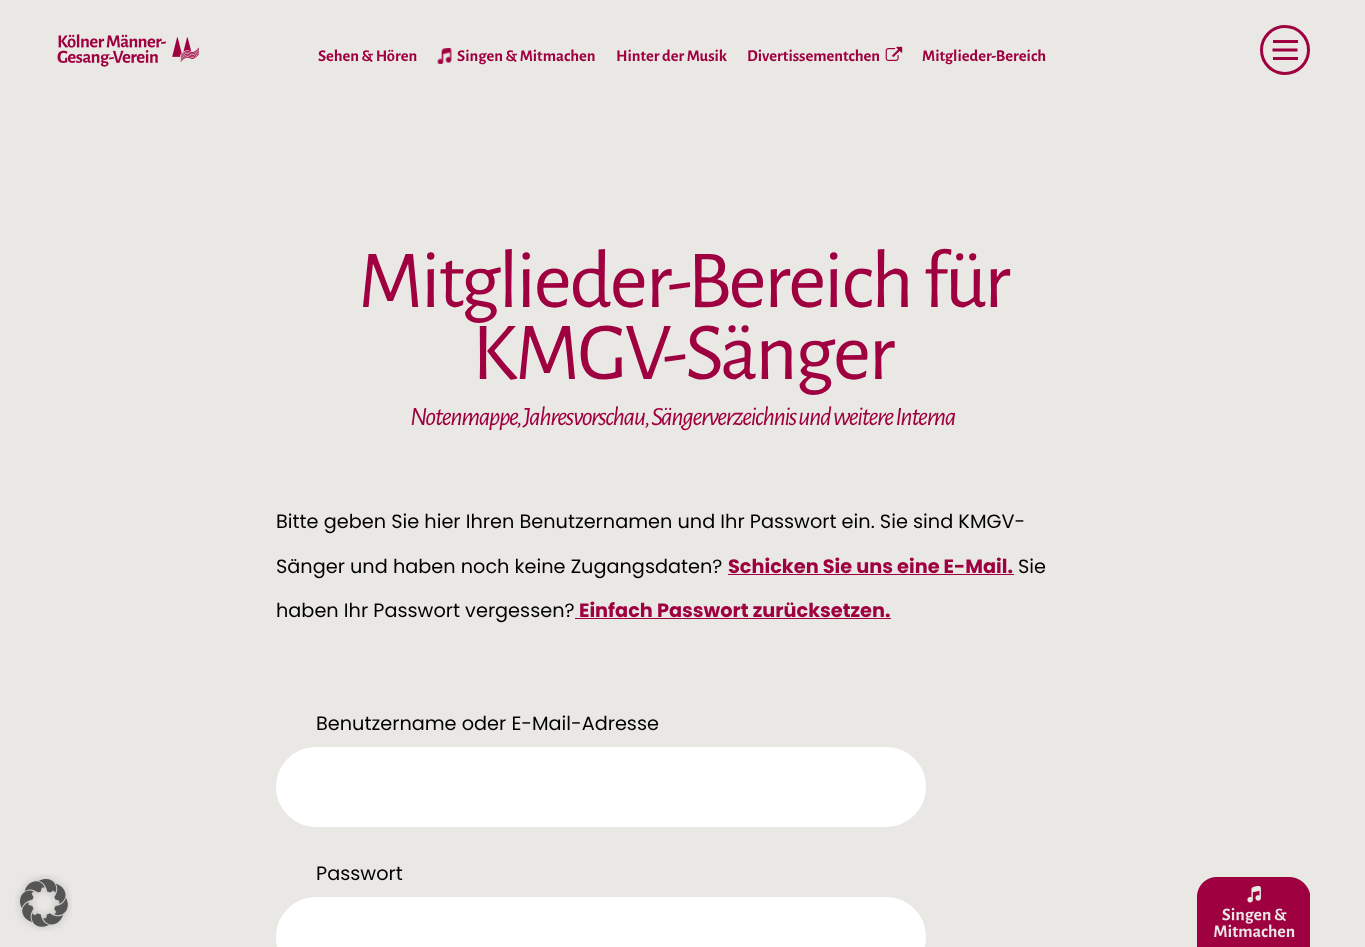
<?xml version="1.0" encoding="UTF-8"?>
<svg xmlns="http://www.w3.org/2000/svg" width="1365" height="947">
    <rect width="100%" height="100%" fill="#EAE8E4"/>
    <image x="57" y="34" width="142" height="33" href="img_01.png"/>
    <circle cx="1285" cy="50" r="23.5" fill="none" stroke="#9F003F" stroke-width="3"/>
    <rect x="1273" y="40" width="25" height="3" fill="#9F003F"/>
    <path d="M 1272.5 50 H 1297.5" fill="none" stroke="#9F003F" stroke-width="3"/>
    <rect x="1273" y="57" width="25" height="3" fill="#9F003F"/>
    <text x="318" y="61" font-family="Alegreya Sans" font-size="16.5" font-weight="700" fill="#9F003F">Sehen &amp; Hören</text>
    <image x="437" y="48" width="15" height="16" href="img_02.png"/>
    <text x="457" y="61" font-family="Alegreya Sans" font-size="16.5" font-weight="700" fill="#9F003F">Singen &amp; Mitmachen</text>
    <text x="616" y="61" font-family="Alegreya Sans" font-size="16.5" font-weight="700" fill="#9F003F">Hinter der Musik</text>
    <text x="747" y="61" font-family="Alegreya Sans" font-size="16.5" font-weight="700" fill="#9F003F">Divertissementchen</text>
    <image x="885" y="46" width="18" height="15" href="img_03.png"/>
    <text x="922" y="61" font-family="Alegreya Sans" font-size="16.5" font-weight="700" fill="#9F003F">Mitglieder-Bereich</text>
    <text x="358" y="307" font-family="Alegreya Sans" font-size="82.75" letter-spacing="-2.5" fill="#9F003F">Mitglieder-Bereich für</text>
    <text x="472" y="379" font-family="Alegreya Sans" font-size="82.75" letter-spacing="-2.5" fill="#9F003F">KMGV-Sänger</text>
    <text x="410" y="425" font-family="Alegreya Sans" font-size="26.5" font-style="italic" letter-spacing="-1.48" fill="#9F003F">Notenmappe, Jahresvorschau, Sängerverzeichnis und weitere Interna</text>
    <text x="276" y="528" font-family="Poppins" font-size="19.3" fill="#000000">Bitte geben Sie hier Ihren Benutzernamen und Ihr Passwort ein. Sie sind KMGV-</text>
    <text x="276" y="573" font-family="Poppins" font-size="19.3" fill="#000000">Sänger und haben noch keine Zugangsdaten?</text>
    <text x="728" y="573" font-family="Poppins" font-size="19.3" font-weight="700" fill="#9F003F">Schicken Sie uns eine E-Mail.</text>
    <rect x="728" y="574" width="286" height="1" fill="#9F003F"/>
    <text x="1018" y="573" font-family="Poppins" font-size="19.3" fill="#000000">Sie</text>
    <text x="276" y="617" font-family="Poppins" font-size="19.3" fill="#000000">haben Ihr Passwort vergessen?</text>
    <text x="579" y="617" font-family="Poppins" font-size="19.3" font-weight="700" fill="#9F003F">Einfach Passwort zurücksetzen.</text>
    <rect x="575" y="618" width="316" height="1" fill="#9F003F"/>
    <text x="316" y="730" font-family="Poppins" font-size="19.3" fill="#000000">Benutzername oder E-Mail-Adresse</text>
    <rect x="277.5" y="748.5" width="647" height="77" rx="38.5" fill="#FFFFFF" stroke="#FFFFFF" stroke-width="3"/>
    <text x="316" y="880" font-family="Poppins" font-size="19.3" fill="#000000">Passwort</text>
    <rect x="277.5" y="898.5" width="647" height="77" rx="38.5" fill="#FFFFFF" stroke="#FFFFFF" stroke-width="3"/>
    <image x="1197" y="877" width="113" height="70" href="img_04.png"/>
    <image x="15" y="874" width="57" height="57" href="img_05.png"/>
</svg>
